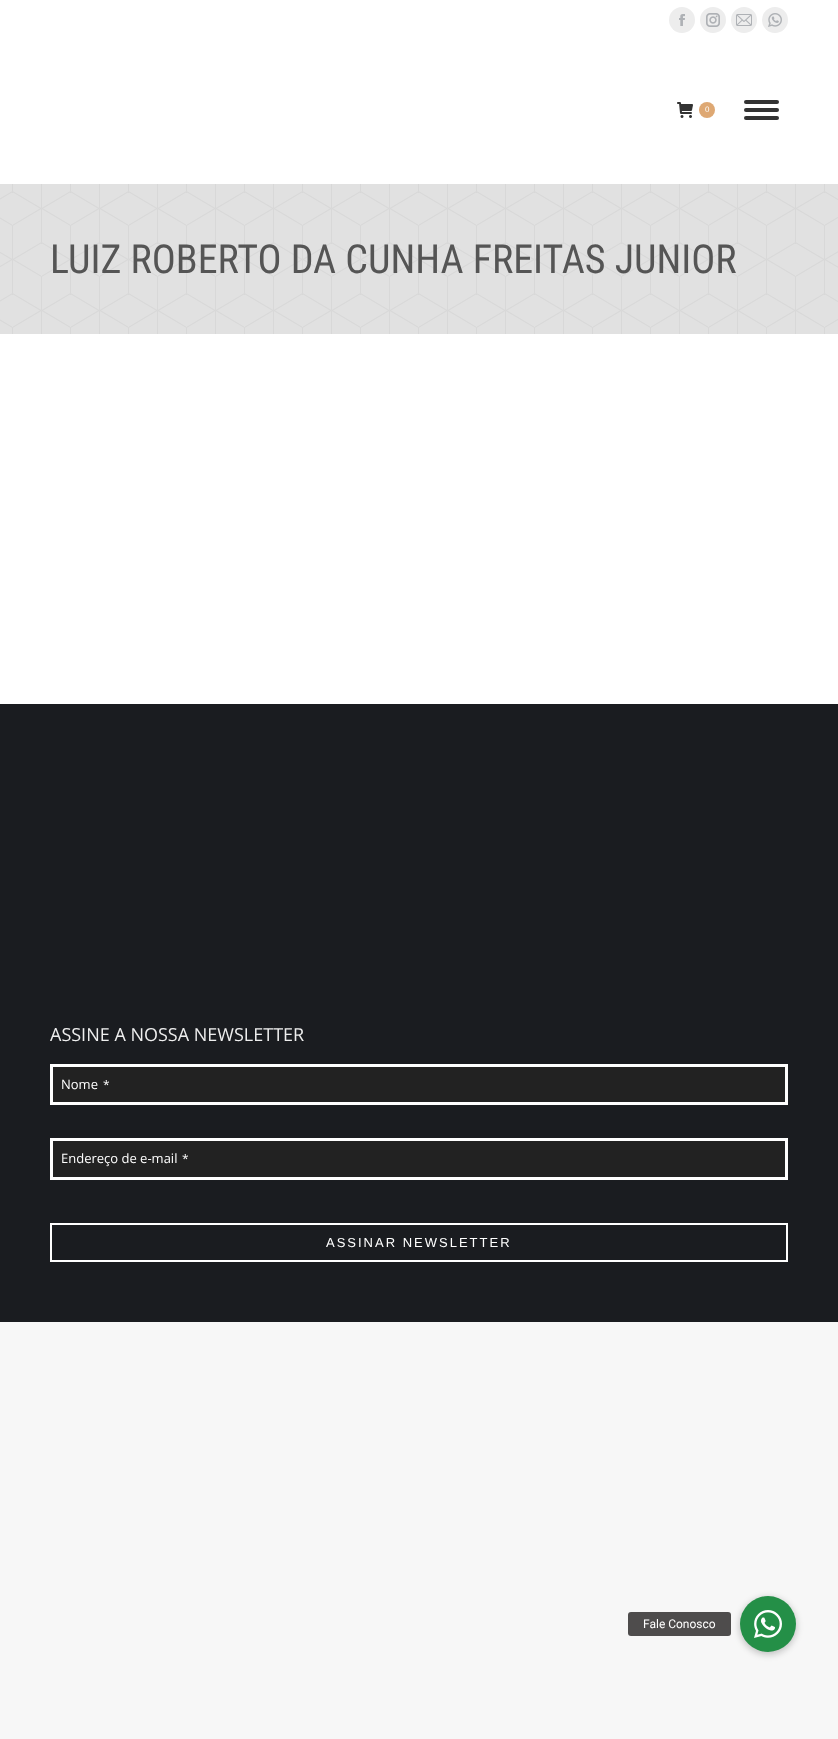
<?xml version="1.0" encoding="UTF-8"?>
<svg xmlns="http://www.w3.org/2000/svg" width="838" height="1739">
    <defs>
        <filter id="blur1" x="-50%" y="-200%" width="200%" height="500%"><feGaussianBlur stdDeviation="3"/></filter>
    </defs>
    <rect width="100%" height="100%" fill="#F7F7F7"/>
    <rect x="0" y="0" width="838" height="704" fill="#FFFFFF"/>
    <circle cx="682" cy="20" r="13" fill="#EDEDED"/>
    <image x="679" y="14" width="6" height="12" href="img_01.png"/>
    <circle cx="713" cy="20" r="13" fill="#EDEDED"/>
    <image x="706" y="13" width="14" height="14" href="img_02.png"/>
    <circle cx="744" cy="20" r="13" fill="#EDEDED"/>
    <image x="736" y="14" width="16" height="12" href="img_03.png"/>
    <circle cx="775" cy="20" r="13" fill="#EDEDED"/>
    <image x="768" y="13" width="14" height="14" href="img_04.png"/>
    <image x="677" y="102" width="16" height="16" href="img_05.png"/>
    <circle cx="707" cy="110" r="8" fill="#DEA873"/>
    <text x="705" y="112" font-family="Liberation Sans" font-size="8" fill="#FFFFFF">0</text>
    <rect x="744" y="100" width="35" height="4" rx="2" fill="#333333"/>
    <rect x="744" y="108" width="35" height="4" rx="2" fill="#333333"/>
    <rect x="744" y="116" width="35" height="4" rx="2" fill="#333333"/>
    <rect x="0" y="184" width="838" height="150" fill="#E1E1E1"/>
    <image x="0" y="184" width="838" height="150" href="img_06.png"/>
    <text x="50" y="273" font-family="Roboto Condensed" font-size="40" fill="#555555">LUIZ ROBERTO DA CUNHA FREITAS JUNIOR</text>
    <rect x="0" y="704" width="838" height="618" fill="#1A1C20"/>
    <text x="50" y="1041" font-family="Open Sans" font-size="18" fill="#EEEEEE">ASSINE A NOSSA NEWSLETTER</text>
    <rect x="51.5" y="1065.5" width="735" height="38" fill="#222222" stroke="#FFFFFF" stroke-width="3"/>
    <text x="61" y="1089" font-family="Open Sans" font-size="13" fill="#FFFFFF">Nome</text>
    <text x="103" y="1089" font-family="Open Sans" font-size="12" fill="#FFFFFF">*</text>
    <rect x="51.5" y="1139.5" width="735" height="39" fill="#222222" stroke="#FFFFFF" stroke-width="3"/>
    <text x="61" y="1163" font-family="Open Sans" font-size="13" fill="#FFFFFF">Endereço de e-mail</text>
    <text x="182" y="1163" font-family="Open Sans" font-size="12" fill="#FFFFFF">*</text>
    <rect x="51" y="1224" width="736" height="37" fill="none" stroke="#FFFFFF" stroke-width="2"/>
    <text x="326" y="1247" font-family="Liberation Sans" font-size="13" letter-spacing="2" fill="#FFFFFF">ASSINAR NEWSLETTER</text>
    <rect x="739" y="1597" width="58" height="58" rx="29" fill="#000000" fill-opacity="0.2" filter="url(#blur1)"/>
    <circle cx="768" cy="1624" r="28" fill="#248F47"/>
    <rect x="628" y="1612" width="103" height="24" rx="3" fill="#4E4C4C"/>
    <text x="643" y="1628" font-family="Roboto" font-size="12" fill="#FFFFFF">Fale Conosco</text>
    <image x="754" y="1610" width="28" height="28" href="img_07.png"/>
</svg>
